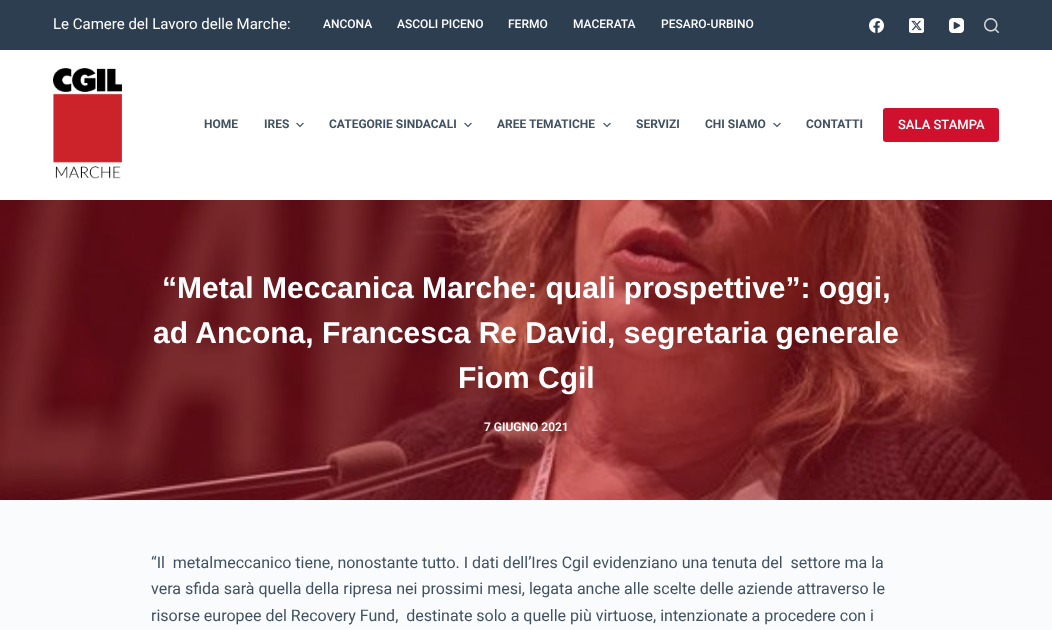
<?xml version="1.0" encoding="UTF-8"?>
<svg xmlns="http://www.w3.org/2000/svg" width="1052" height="630">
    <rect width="100%" height="100%" fill="#FAFBFC"/>
    <rect x="0" y="0" width="1052" height="50" fill="#2C3E50"/>
    <text x="53" y="29" font-family="Roboto" font-size="15" fill="#FFFFFF">Le Camere del Lavoro delle Marche:</text>
    <text x="323" y="28" font-family="Roboto" font-size="12" font-weight="500" fill="#FFFFFF">ANCONA</text>
    <text x="397" y="28" font-family="Roboto" font-size="12" font-weight="500" fill="#FFFFFF">ASCOLI PICENO</text>
    <text x="508" y="28" font-family="Roboto" font-size="12" font-weight="500" fill="#FFFFFF">FERMO</text>
    <text x="573" y="28" font-family="Roboto" font-size="12" font-weight="500" fill="#FFFFFF">MACERATA</text>
    <text x="661" y="28" font-family="Roboto" font-size="12" font-weight="500" fill="#FFFFFF">PESARO-URBINO</text>
    <image x="869" y="18" width="15" height="15" href="img_01.png"/>
    <image x="909" y="18" width="15" height="15" href="img_02.png"/>
    <image x="949" y="18" width="15" height="15" href="img_03.png"/>
    <image x="984" y="18" width="15" height="15" href="img_04.png"/>
    <rect x="0" y="50" width="1052" height="150" fill="#FFFFFF"/>
    <image x="53" y="68" width="69" height="111" href="img_05.png"/>
    <text x="204" y="128" font-family="Roboto" font-size="12" font-weight="700" fill="#415161">HOME</text>
    <text x="264" y="128" font-family="Roboto" font-size="12" font-weight="700" fill="#415161">IRES</text>
    <image x="296" y="122" width="8" height="6" href="img_06.png"/>
    <text x="329" y="128" font-family="Roboto" font-size="12" font-weight="700" fill="#415161">CATEGORIE SINDACALI</text>
    <image x="464" y="122" width="8" height="6" href="img_06.png"/>
    <text x="497" y="128" font-family="Roboto" font-size="12" font-weight="700" fill="#415161">AREE TEMATICHE</text>
    <image x="603" y="122" width="8" height="6" href="img_06.png"/>
    <text x="636" y="128" font-family="Roboto" font-size="12" font-weight="700" fill="#415161">SERVIZI</text>
    <text x="705" y="128" font-family="Roboto" font-size="12" font-weight="700" fill="#415161">CHI SIAMO</text>
    <image x="773" y="122" width="8" height="6" href="img_06.png"/>
    <text x="806" y="128" font-family="Roboto" font-size="12" font-weight="700" fill="#415161">CONTATTI</text>
    <rect x="883" y="108" width="116" height="34" rx="3" fill="#CF112D"/>
    <text x="898" y="129" font-family="Roboto" font-size="13" font-weight="500" fill="#FFFFFF">SALA STAMPA</text>
    <image x="0" y="200" width="1052" height="300" href="img_07.png"/>
    <text x="162" y="298" font-family="Liberation Sans" font-size="30" font-weight="700" fill="#FFFFFF">“Metal Meccanica Marche: quali prospettive”: oggi,</text>
    <text x="153" y="343" font-family="Liberation Sans" font-size="30" font-weight="700" fill="#FFFFFF">ad Ancona, Francesca Re David, segretaria generale</text>
    <text x="458" y="388" font-family="Liberation Sans" font-size="30" font-weight="700" fill="#FFFFFF">Fiom Cgil</text>
    <text x="484" y="431" font-family="Roboto" font-size="12" font-weight="600" fill="#FFFFFF">7 GIUGNO 2021</text>
    <text font-family="Roboto" font-size="16" fill="#415161" xml:space="preserve"><tspan x="151" y="568">“Il  metalmeccanico tiene, nonostante tutto. I dati dell’Ires Cgil evidenziano una tenuta del  settore ma la</tspan><tspan x="151" y="594">vera sfida sarà quella della ripresa nei prossimi mesi, legata anche alle scelte delle aziende attraverso le</tspan><tspan x="151" y="621">risorse europee del Recovery Fund,  destinate solo a quelle più virtuose, intenzionate a procedere con i</tspan></text>
</svg>
